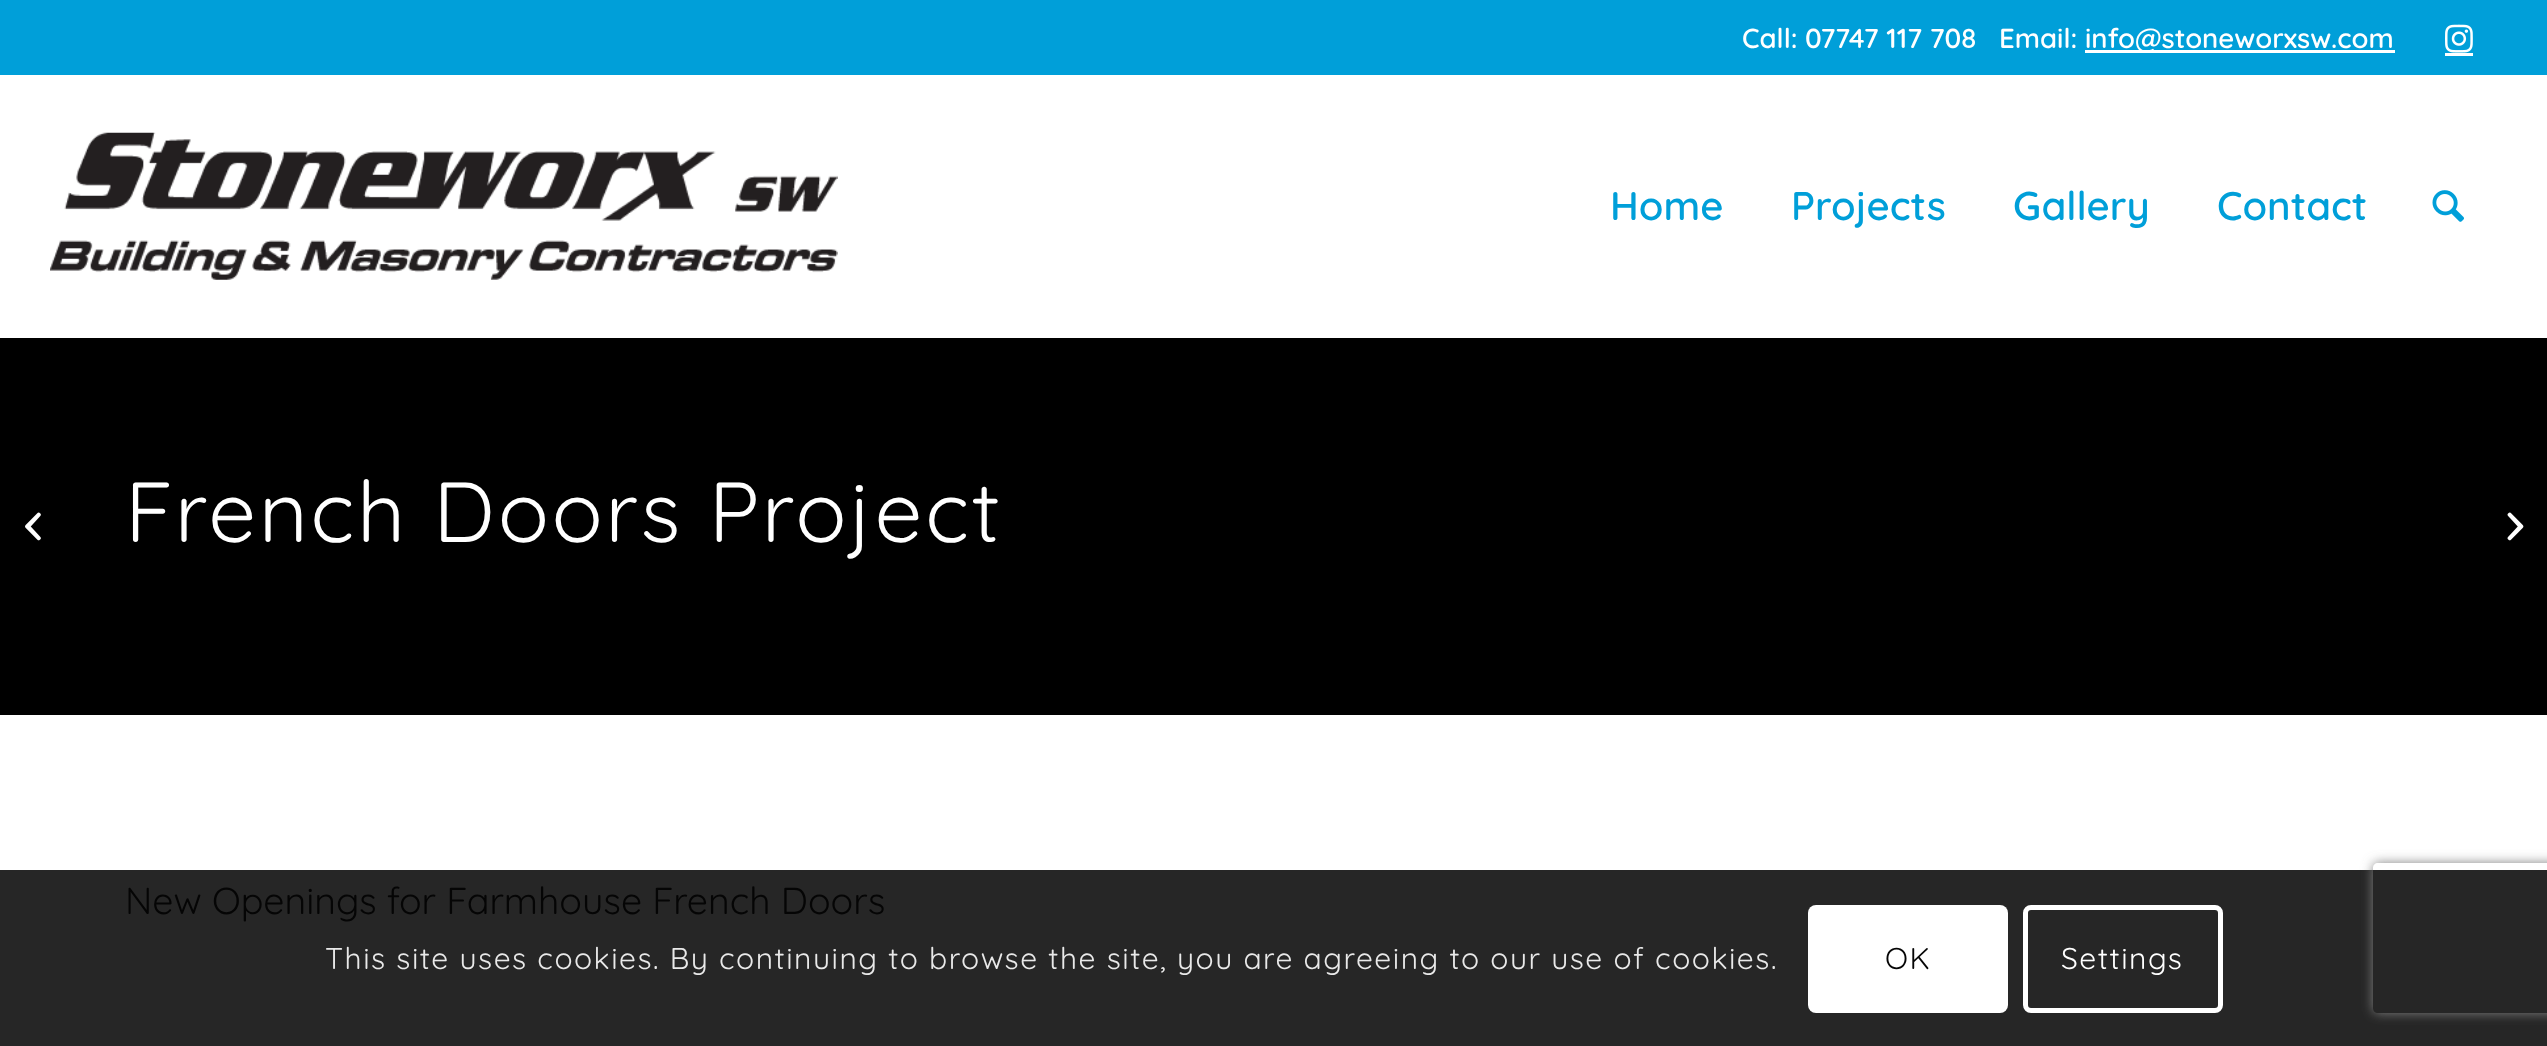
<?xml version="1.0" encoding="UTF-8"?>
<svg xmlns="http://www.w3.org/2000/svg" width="2547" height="1046">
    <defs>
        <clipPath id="clip1"><path d="M 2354 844 H 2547 V 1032 H 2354 Z M 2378 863 H 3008 C 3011 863 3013 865 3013 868 V 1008 C 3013 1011 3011 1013 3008 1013 H 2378 C 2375 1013 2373 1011 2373 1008 V 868 C 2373 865 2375 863 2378 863 Z" clip-rule="evenodd"/></clipPath>
        <filter id="blur1" x="-50%" y="-200%" width="200%" height="500%"><feGaussianBlur stdDeviation="6"/></filter>
    </defs>
    <rect width="100%" height="100%" fill="#FFFFFF"/>
    <rect x="0" y="870" width="2547" height="176" fill="#262626"/>
    <rect x="0" y="0" width="2547" height="75" fill="#009FD9"/>
    <text x="1742" y="48" font-family="Quicksand" font-size="27.5" font-weight="600" fill="#FFFFFF" xml:space="preserve">Call: 07747 117 708   Email:</text>
    <rect x="2085" y="50" width="310" height="3" fill="#FFFFFF"/>
    <text x="2085" y="48" font-family="Quicksand" font-size="27.5" font-weight="600" fill="#FFFFFF">info@stoneworxsw.com</text>
    <image x="2445" y="24" width="28" height="29" href="img_01.png"/>
    <rect x="2445" y="53" width="28" height="3" fill="#FFFFFF"/>
    <image x="50" y="132" width="788" height="148" href="img_02.png"/>
    <text x="1610" y="220" font-family="Quicksand" font-size="40" font-weight="600" fill="#009FD9">Home</text>
    <text x="1791" y="220" font-family="Quicksand" font-size="40" font-weight="600" fill="#009FD9">Projects</text>
    <text x="2013" y="220" font-family="Quicksand" font-size="40" font-weight="600" fill="#009FD9">Gallery</text>
    <text x="2217" y="220" font-family="Quicksand" font-size="40" font-weight="600" fill="#009FD9">Contact</text>
    <image x="2432" y="190" width="32" height="32" href="img_03.png"/>
    <rect x="0" y="338" width="2547" height="377" fill="#000000"/>
    <image x="25" y="512" width="16" height="29" href="img_04.png"/>
    <text x="125" y="542" font-family="Quicksand" font-size="85" letter-spacing="2.5" fill="#FFFFFF">French Doors Project</text>
    <text x="125" y="914" font-family="Quicksand" font-size="37.5" fill="#050505">New Openings for Farmhouse French Doors</text>
    <image x="2507" y="512" width="17" height="29" href="img_05.png"/>
    <g clip-path="url(#clip1)">
        <rect x="2373" y="863" width="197" height="150" rx="5" fill="#808080" filter="url(#blur1)"/>
    </g>
    <text x="325" y="969" font-family="Quicksand" font-size="30" letter-spacing="1.5" fill="#E9E9E9">This site uses cookies. By continuing to browse the site, you are agreeing to our use of cookies.</text>
    <rect x="1808" y="905" width="200" height="108" rx="8" fill="#FFFFFF"/>
    <text x="1885" y="969" font-family="Quicksand" font-size="30" letter-spacing="1.5" fill="#050505">OK</text>
    <rect x="2025.5" y="907.5" width="195" height="103" rx="5.5" fill="none" stroke="#FFFFFF" stroke-width="5"/>
    <text x="2061" y="969" font-family="Quicksand" font-size="30" letter-spacing="1.5" fill="#FFFFFF">Settings</text>
</svg>
